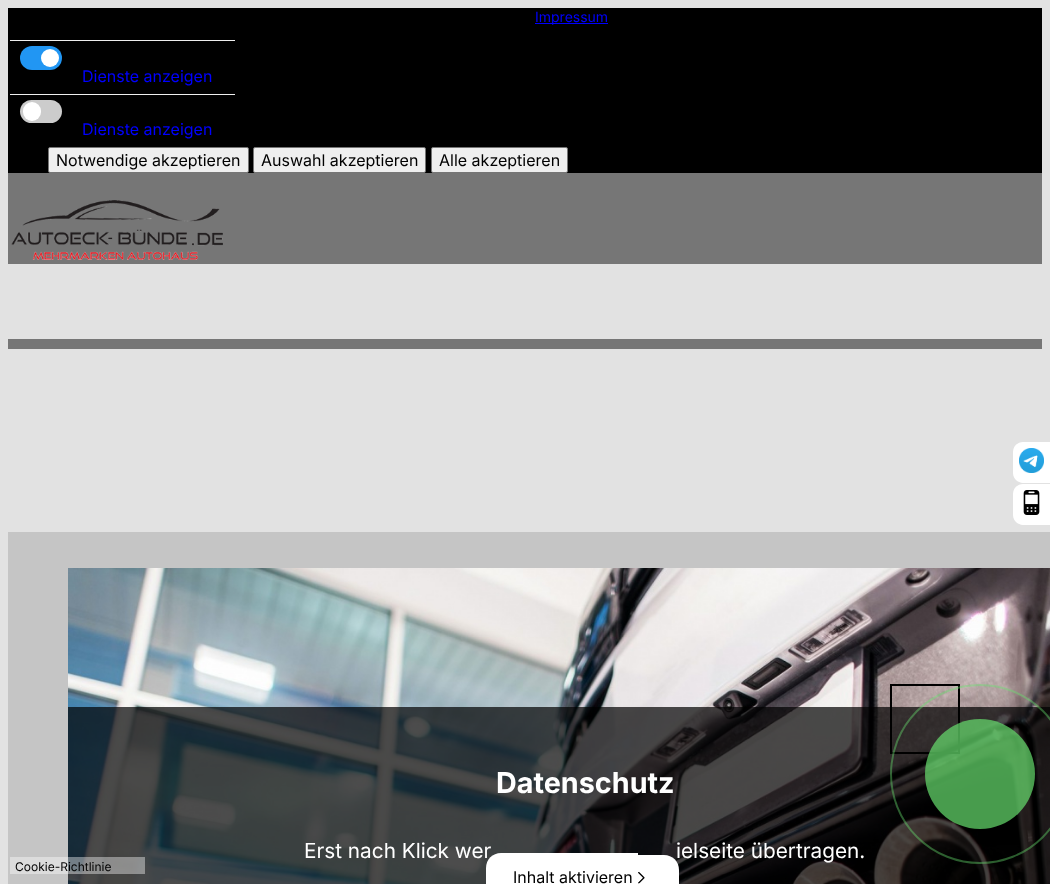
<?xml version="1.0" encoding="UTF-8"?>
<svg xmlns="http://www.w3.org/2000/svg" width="1050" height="884">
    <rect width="100%" height="100%" fill="#E2E2E2"/>
    <rect x="8" y="8" width="1034" height="165" fill="#000000"/>
    <rect x="535" y="23" width="73" height="1" fill="#0000FF"/>
    <text x="535" y="22" font-family="Inter" font-size="14" fill="#0000FF">Impressum</text>
    <rect x="10" y="40" width="225" height="1" fill="#EEEEEE"/>
    <rect x="20" y="46" width="42" height="24" rx="12" fill="#2196F3"/>
    <circle cx="50" cy="58" r="9" fill="#FFFFFF"/>
    <text x="82" y="82" font-family="Inter" font-size="16" fill="#0000FF">Dienste anzeigen</text>
    <rect x="10" y="94" width="225" height="1" fill="#EEEEEE"/>
    <rect x="20" y="100" width="42" height="23" rx="11.5" fill="#CCCCCC"/>
    <rect x="23" y="102" width="18" height="19" rx="9" fill="#FFFFFF"/>
    <text x="82" y="135" font-family="Inter" font-size="16" fill="#0000FF">Dienste anzeigen</text>
    <rect x="48.5" y="147.5" width="200" height="25" rx="1.5" fill="#EFEFEF" stroke="#767676"/>
    <text x="56" y="166" font-family="Inter" font-size="16" fill="#000000">Notwendige akzeptieren</text>
    <rect x="253.5" y="147.5" width="172" height="25" rx="1.5" fill="#EFEFEF" stroke="#767676"/>
    <text x="261" y="166" font-family="Inter" font-size="16" fill="#000000">Auswahl akzeptieren</text>
    <rect x="431.5" y="147.5" width="136" height="25" rx="1.5" fill="#EFEFEF" stroke="#767676"/>
    <text x="439" y="166" font-family="Inter" font-size="16" fill="#000000">Alle akzeptieren</text>
    <rect x="8" y="173" width="1034" height="91" fill="#767676"/>
    <image x="11" y="200" width="212" height="60" href="img_01.png"/>
    <rect x="8" y="339" width="1034" height="10" fill="#767676"/>
    <path d="M 1023 442 H 1050 V 483 H 1023 C 1017.5 483 1013 478.5 1013 473 V 452 C 1013 446.5 1017.5 442 1023 442 Z" fill="#FFFFFF"/>
    <image x="1019" y="448" width="25" height="25" href="img_02.png"/>
    <path d="M 1023 484 H 1050 V 525 H 1023 C 1017.5 525 1013 520.5 1013 515 V 494 C 1013 488.5 1017.5 484 1023 484 Z" fill="#FFFFFF"/>
    <image x="1023" y="490" width="17" height="25" href="img_03.png"/>
    <rect x="8" y="532" width="1042" height="352" fill="#C5C5C5"/>
    <image x="68" y="568" width="982" height="316" href="img_04.png"/>
    <rect x="68" y="707" width="982" height="177" fill="#000000" fill-opacity="0.7"/>
    <rect x="10" y="857" width="135" height="17" fill="#FFFFFF" fill-opacity="0.4"/>
    <text x="15" y="871" font-family="Inter" font-size="12" fill="#000000">Cookie-Richtlinie</text>
    <text x="496" y="793" font-family="Inter" font-size="28.75" font-weight="700" fill="#FFFFFF">Datenschutz</text>
    <text x="304" y="858" font-family="Inter" font-size="20.75" fill="#FFFFFF">Erst nach Klick wer</text>
    <text x="676" y="858" font-family="Inter" font-size="20.75" fill="#FFFFFF">ielseite übertragen.</text>
    <path d="M 501 853 H 638 V 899 H 501 C 492.5 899 486 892.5 486 884 V 868 C 486 859.5 492.5 853 501 853 Z" fill="#FFFFFF"/>
    <text x="513" y="883" font-family="Inter" font-size="16" fill="#000000">Inhalt aktivieren</text>
    <path d="M 638 855 H 664 C 672.5 855 679 861.5 679 870 V 883 C 679 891.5 672.5 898 664 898 H 638 Z" fill="#FFFFFF"/>
    <image x="638" y="872" width="7" height="12" href="img_05.png"/>
    <rect x="891" y="685" width="68" height="68" fill="none" stroke="#000000" stroke-width="2"/>
    <circle cx="980" cy="774" r="89" fill="none" stroke="#69E270" stroke-opacity="0.41" stroke-width="2"/>
    <circle cx="980" cy="774" r="55" fill="#69E270" fill-opacity="0.69"/>
</svg>
